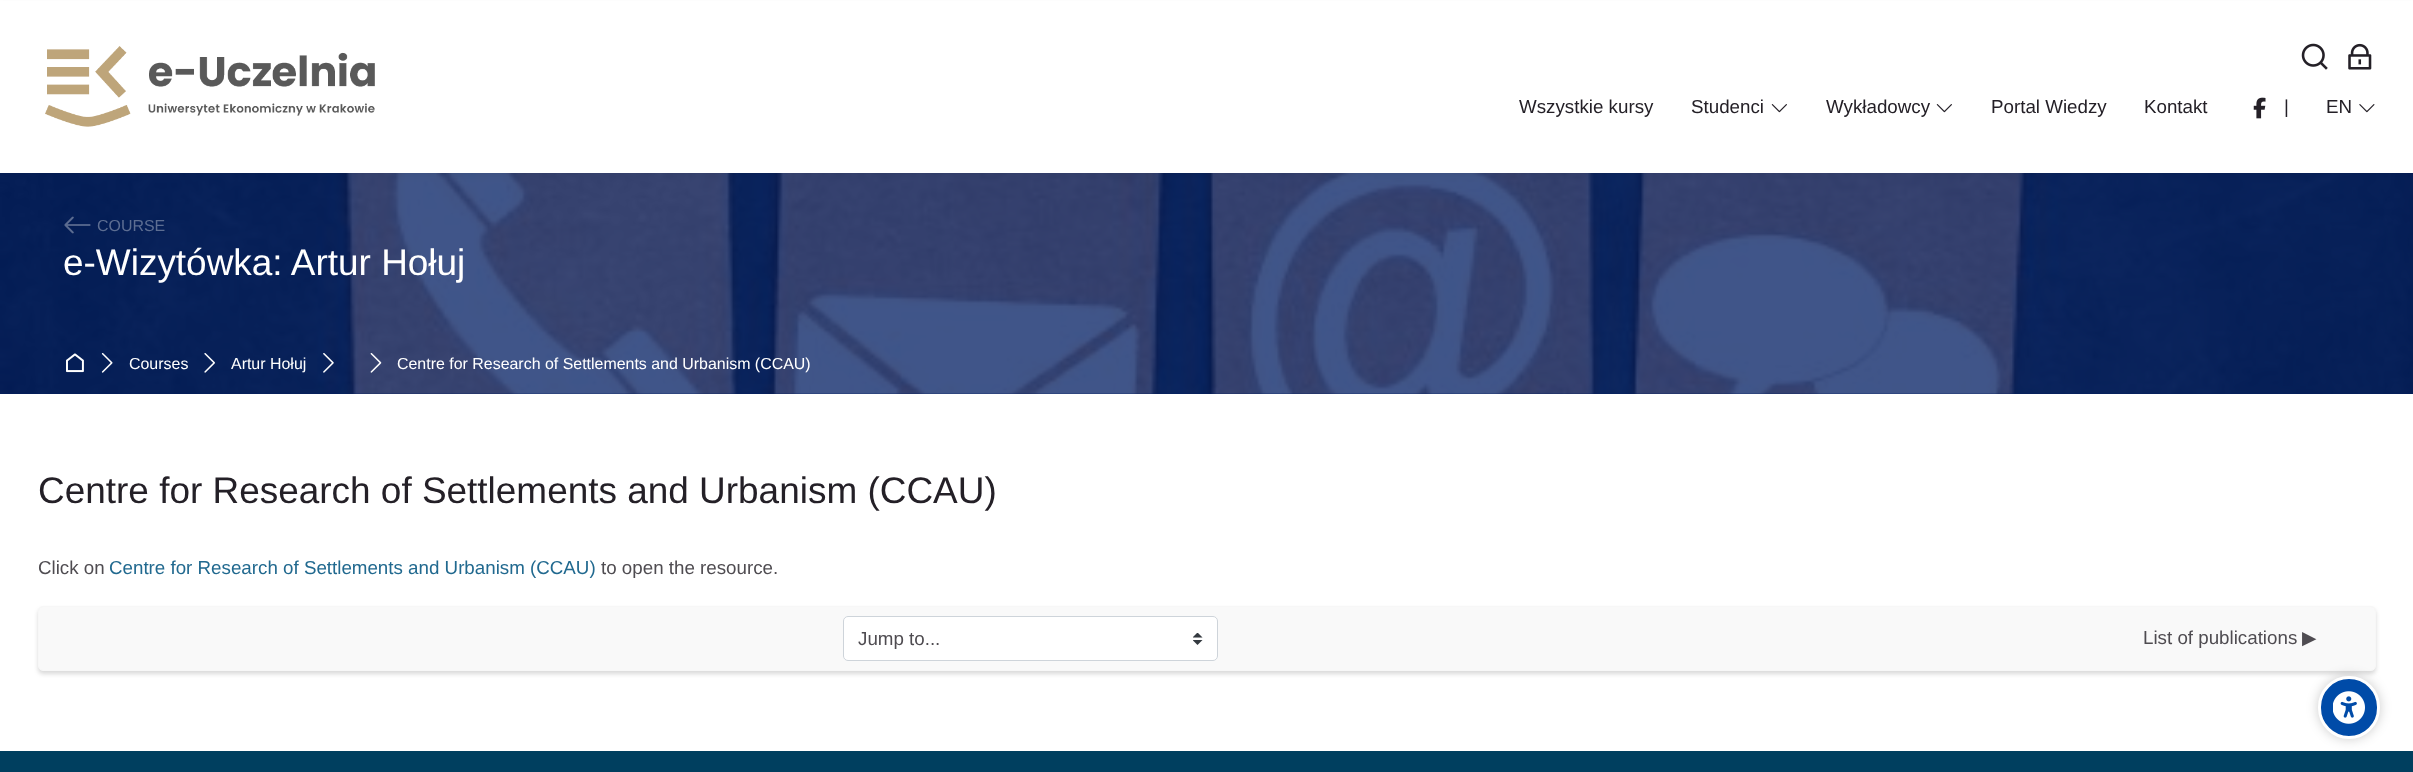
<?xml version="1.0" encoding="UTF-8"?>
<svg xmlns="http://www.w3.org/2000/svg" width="2413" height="772">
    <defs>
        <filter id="blur1" x="-50%" y="-200%" width="200%" height="500%"><feGaussianBlur stdDeviation="3"/></filter>
        <filter id="blur2" x="-50%" y="-200%" width="200%" height="500%"><feGaussianBlur stdDeviation="2"/></filter>
        <filter id="blur3" x="-50%" y="-200%" width="200%" height="500%"><feGaussianBlur stdDeviation="6"/></filter>
    </defs>
    <rect width="100%" height="100%" fill="#FFFFFF"/>
    <rect x="0" y="173" width="2413" height="221" fill="#001D62"/>
    <image x="0" y="173" width="2413" height="221" href="img_07.png"/>
    <rect x="0" y="4" width="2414" height="172" fill="#000000" fill-opacity="0.05" filter="url(#blur1)"/>
    <rect x="0" y="1" width="2413" height="172" fill="#FFFFFF"/>
    <image x="45" y="46" width="330" height="81" href="img_01.png"/>
    <image x="2301" y="43" width="27" height="27" href="img_02.png"/>
    <image x="2348" y="43" width="24" height="27" href="img_03.png"/>
    <text x="1519" y="113" font-family="Liberation Sans" font-size="18.75" fill="#242027">Wszystkie kursy</text>
    <text x="1691" y="113" font-family="Liberation Sans" font-size="18.75" fill="#242027">Studenci</text>
    <image x="1771" y="104" width="16" height="9" href="img_04.png"/>
    <text x="1826" y="113" font-family="Liberation Sans" font-size="18.75" fill="#242027">Wykładowcy</text>
    <image x="1936" y="104" width="16" height="9" href="img_04.png"/>
    <text x="1991" y="113" font-family="Liberation Sans" font-size="18.75" fill="#242027">Portal Wiedzy</text>
    <text x="2144" y="113" font-family="Liberation Sans" font-size="18.75" fill="#242027">Kontakt</text>
    <image x="2253" y="97" width="13" height="22" href="img_05.png"/>
    <text x="2284" y="113" font-family="Liberation Sans" font-size="18.75" fill="#242027">|</text>
    <text x="2326" y="113" font-family="Liberation Sans" font-size="18.75" fill="#242027">EN</text>
    <image x="2359" y="104" width="16" height="9" href="img_06.png"/>
    <image x="64" y="216" width="27" height="18" href="img_08.png"/>
    <text x="97" y="231" font-family="Liberation Sans" font-size="15.95" fill="#5D6E92">COURSE</text>
    <text x="63" y="275" font-family="Liberation Sans" font-size="36.95" fill="#FFFFFF">e-Wizytówka: Artur Hołuj</text>
    <image x="66" y="353" width="18" height="20" href="img_09.png"/>
    <image x="101" y="353" width="12" height="20" href="img_10.png"/>
    <text x="129" y="369" font-family="Liberation Sans" font-size="15.95" fill="#FFFFFF">Courses</text>
    <image x="204" y="353" width="11" height="20" href="img_11.png"/>
    <text x="231" y="369" font-family="Liberation Sans" font-size="15.95" fill="#FFFFFF">Artur Hołuj</text>
    <image x="323" y="353" width="11" height="20" href="img_12.png"/>
    <image x="370" y="353" width="12" height="20" href="img_13.png"/>
    <text x="397" y="369" font-family="Liberation Sans" font-size="15.95" fill="#FFFFFF">Centre for Research of Settlements and Urbanism (CCAU)</text>
    <text x="38" y="503" font-family="Liberation Sans" font-size="36.95" fill="#242027">Centre for Research of Settlements and Urbanism (CCAU)</text>
    <text x="38" y="574" font-family="Liberation Sans" font-size="18.75" fill="#4F4C51">Click on</text>
    <text x="109" y="574" font-family="Liberation Sans" font-size="18.75" fill="#21698F">Centre for Research of Settlements and Urbanism (CCAU)</text>
    <text x="601" y="574" font-family="Liberation Sans" font-size="18.75" fill="#4F4C51">to open the resource.</text>
    <rect x="38" y="609" width="2338" height="65" rx="5" fill="#000000" fill-opacity="0.15" filter="url(#blur2)"/>
    <rect x="38.5" y="606.5" width="2337" height="64" rx="4.5" fill="#F9F9F9" stroke="#F7F7F7"/>
    <rect x="843" y="616" width="375" height="45" rx="5" fill="#FFFFFF"/>
    <image x="1193" y="633" width="10" height="12" href="img_14.png"/>
    <rect x="843.5" y="616.5" width="374" height="44" rx="4.5" fill="none" stroke="#CED4DA"/>
    <text x="858" y="645" font-family="Liberation Sans" font-size="18.75" fill="#4F4C51">Jump to...</text>
    <text x="2143" y="644" font-family="Liberation Sans" font-size="18.75" fill="#4F4C51">List of publications</text>
    <text x="2302" y="644" font-family="DejaVu Sans" font-size="18.75" fill="#4F4C51">▶︎</text>
    <rect x="0" y="751" width="2413" height="21" fill="#003F5F"/>
    <rect x="2318" y="676" width="62" height="63" rx="31" fill="#000000" fill-opacity="0.2" filter="url(#blur3)"/>
    <rect x="2319.5" y="677.5" width="59" height="60" rx="29.5" fill="#004BA8" stroke="#FFFFFF" stroke-width="3"/>
    <image x="2333" y="691" width="32" height="33" href="img_15.png"/>
</svg>
